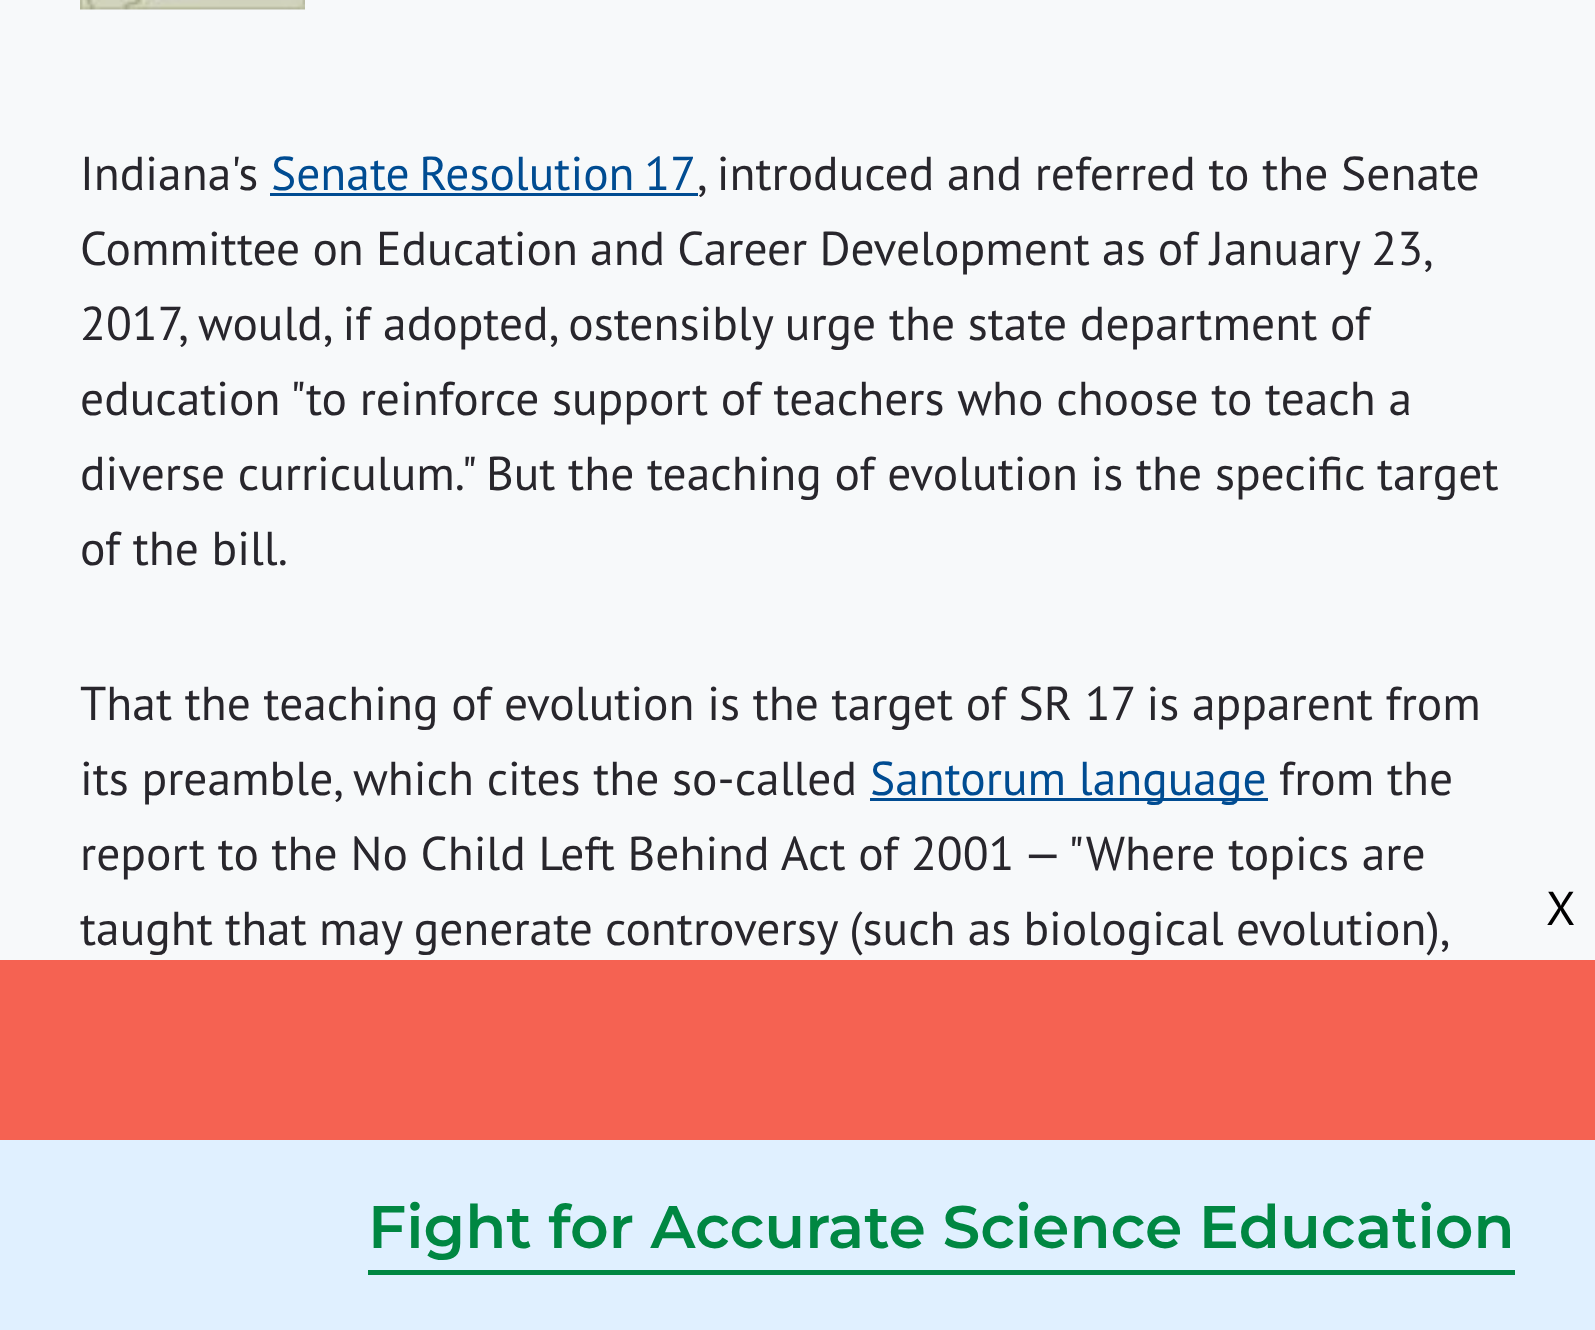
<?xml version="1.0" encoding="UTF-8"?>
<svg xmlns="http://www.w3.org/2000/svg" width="1595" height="1330">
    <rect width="100%" height="100%" fill="#F7F9FA"/>
    <image x="80" y="0" width="225" height="10" href="img_01.png"/>
    <text x="80" y="190" font-family="PT Sans" font-size="47.5" fill="#28262C">Indiana's</text>
    <text x="271" y="190" word-spacing="-3" font-family="PT Sans" font-size="47.5" fill="#004C92">Senate Resolution 17</text>
    <rect x="270" y="193" width="428" height="3" fill="#004C92"/>
    <text x="697" y="190" font-family="PT Sans" font-size="47.5" fill="#28262C">, introduced and referred to the Senate</text>
    <text font-family="PT Sans" font-size="47.5" fill="#28262C">
        <tspan x="80" y="265" word-spacing="-0.5">Committee on Education and Career Development as of January 23,</tspan>
        <tspan x="80" y="340">2017, would, if adopted, ostensibly urge the state department of</tspan>
        <tspan x="80" y="415">education "to reinforce support of teachers who choose to teach a</tspan>
        <tspan x="80" y="490">diverse curriculum." But the teaching of evolution is the specific target</tspan>
        <tspan x="80" y="565">of the bill.</tspan>
    </text>
    <text font-family="PT Sans" font-size="47.5" fill="#28262C">
        <tspan x="80" y="720">That the teaching of evolution is the target of SR 17 is apparent from</tspan>
        <tspan x="80" y="795">its preamble, which cites the so-called</tspan>
    </text>
    <rect x="870" y="798" width="398" height="3" fill="#004C92"/>
    <text x="870" y="795" font-family="PT Sans" font-size="47.5" fill="#004C92">Santorum language</text>
    <text x="1279" y="795" font-family="PT Sans" font-size="47.5" fill="#28262C">from the</text>
    <text font-family="PT Sans" font-size="47.5" fill="#28262C">
        <tspan x="80" y="870">report to the No Child Left Behind Act of 2001 — "Where topics are</tspan>
        <tspan x="80" y="945" word-spacing="-0.5">taught that may generate controversy (such as biological evolution),</tspan>
    </text>
    <rect x="0" y="960" width="1595" height="180" fill="#F56252"/>
    <text x="1546" y="925" font-family="PT Sans" font-size="47.5" fill="#000000">X</text>
    <rect x="0" y="1140" width="1595" height="190" fill="#E0F0FF"/>
    <rect x="368" y="1270" width="1147" height="5" fill="#008742"/>
    <text x="368" y="1248" font-family="Montserrat" font-size="60" font-weight="600" fill="#008742">Fight for Accurate Science Education</text>
</svg>
